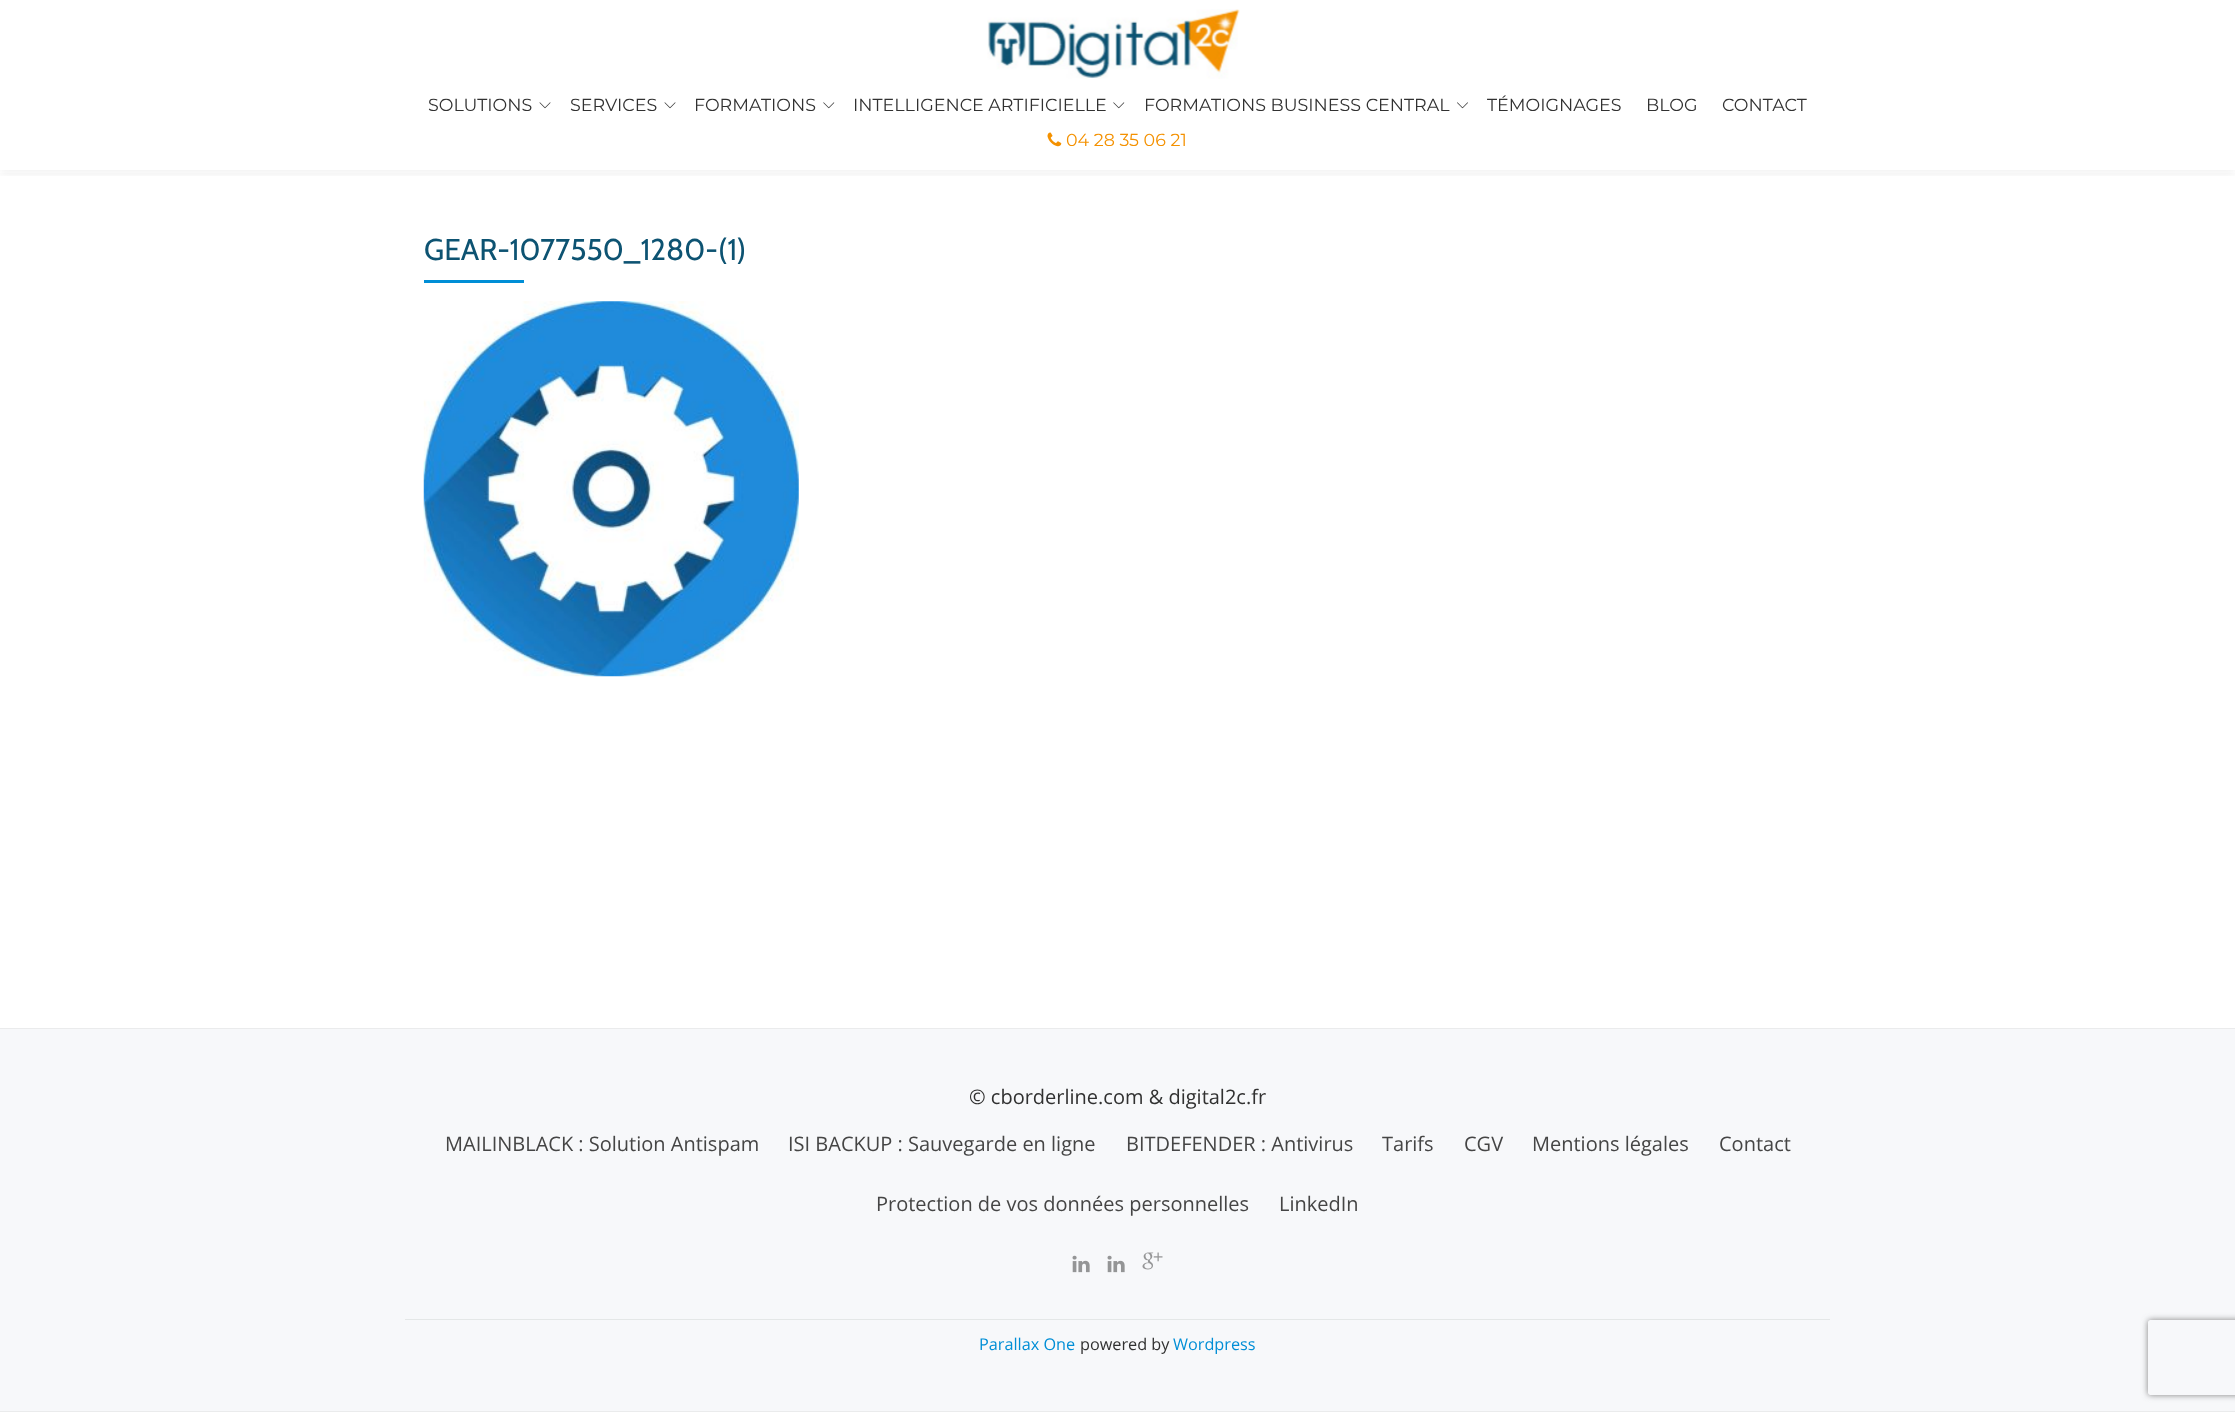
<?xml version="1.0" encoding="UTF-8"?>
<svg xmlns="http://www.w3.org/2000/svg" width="2235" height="1412">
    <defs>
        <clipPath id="clip1"><rect x="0" y="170" width="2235" height="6"/></clipPath>
        <filter id="blur1" x="-50%" y="-200%" width="200%" height="500%"><feGaussianBlur stdDeviation="5"/></filter>
        <clipPath id="clip2"><path d="M 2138 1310 H 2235 V 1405 H 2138 Z M 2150.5 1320 H 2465.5 C 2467 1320 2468 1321 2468 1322.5 V 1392.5 C 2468 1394 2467 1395 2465.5 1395 H 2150.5 C 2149 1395 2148 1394 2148 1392.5 V 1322.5 C 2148 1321 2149 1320 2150.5 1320 Z" clip-rule="evenodd"/></clipPath>
        <filter id="blur2" x="-50%" y="-200%" width="200%" height="500%"><feGaussianBlur stdDeviation="3"/></filter>
    </defs>
    <rect width="100%" height="100%" fill="#FFFFFF"/>
    <g clip-path="url(#clip1)">
        <rect x="0" y="3" width="2235" height="170" fill="#323232" fill-opacity="0.08" filter="url(#blur1)"/>
    </g>
    <image x="987" y="9" width="253" height="70" href="img_01.png"/>
    <text x="428" y="111" font-family="Montserrat" font-size="17.5" fill="#313131">SOLUTIONS</text>
    <image x="539" y="102" width="12" height="7" href="img_02.png"/>
    <text x="570" y="111" font-family="Montserrat" font-size="17.5" fill="#313131">SERVICES</text>
    <image x="664" y="102" width="12" height="7" href="img_02.png"/>
    <text x="694" y="111" font-family="Montserrat" font-size="17.5" fill="#313131">FORMATIONS</text>
    <image x="823" y="102" width="12" height="7" href="img_03.png"/>
    <text x="853" y="111" font-family="Montserrat" font-size="17.5" fill="#313131">INTELLIGENCE ARTIFICIELLE</text>
    <image x="1113" y="102" width="12" height="7" href="img_03.png"/>
    <text x="1144" y="111" font-family="Montserrat" font-size="17.5" fill="#313131">FORMATIONS BUSINESS CENTRAL</text>
    <image x="1457" y="102" width="11" height="7" href="img_04.png"/>
    <text x="1487" y="111" font-family="Montserrat" font-size="17.5" fill="#313131">TÉMOIGNAGES</text>
    <text x="1646" y="111" font-family="Montserrat" font-size="17.5" fill="#313131">BLOG</text>
    <text x="1722" y="111" font-family="Montserrat" font-size="17.5" fill="#313131">CONTACT</text>
    <image x="1047" y="132" width="15" height="15" href="img_05.png"/>
    <text x="1066" y="146" font-family="Montserrat" font-size="17.5" fill="#F49100">04 28 35 06 21</text>
    <text x="424" y="260" font-family="Cabin" font-size="30" fill="#0D5372">GEAR-1077550_1280-(1)</text>
    <rect x="424" y="280" width="100" height="3" fill="#008ED6"/>
    <image x="423" y="301" width="376" height="376" href="img_06.png"/>
    <rect x="0" y="1029" width="2235" height="382" fill="#F7F8FA"/>
    <rect x="0" y="1028" width="2235" height="1" fill="#EAEBEC"/>
    <rect x="0" y="1411" width="2235" height="1" fill="#EAEBEC"/>
    <text x="969" y="1104" font-family="Open Sans" font-size="20" fill="#313131">© cborderline.com &amp; digital2c.fr</text>
    <text x="445" y="1151" font-family="Open Sans" font-size="20" fill="#454545">MAILINBLACK : Solution Antispam</text>
    <text x="788" y="1151" font-family="Open Sans" font-size="20" fill="#454545">ISI BACKUP : Sauvegarde en ligne</text>
    <text x="1126" y="1151" font-family="Open Sans" font-size="20" fill="#454545">BITDEFENDER : Antivirus</text>
    <text x="1382" y="1151" font-family="Open Sans" font-size="20" fill="#454545">Tarifs</text>
    <text x="1464" y="1151" font-family="Open Sans" font-size="20" fill="#454545">CGV</text>
    <text x="1532" y="1151" font-family="Open Sans" font-size="20" fill="#454545">Mentions légales</text>
    <text x="1719" y="1151" font-family="Open Sans" font-size="20" fill="#454545">Contact</text>
    <text x="876" y="1211" font-family="Open Sans" font-size="20" fill="#454545">Protection de vos données personnelles</text>
    <text x="1279" y="1211" font-family="Open Sans" font-size="20" fill="#454545">LinkedIn</text>
    <image x="1072" y="1255" width="18" height="18" href="img_07.png"/>
    <image x="1107" y="1255" width="18" height="18" href="img_07.png"/>
    <image x="1142" y="1252" width="21" height="18" href="img_08.png"/>
    <rect x="405" y="1319" width="1425" height="1" fill="#E4E7E7"/>
    <text x="979" y="1350" font-family="Open Sans" font-size="16.25" fill="#008ED6">Parallax One</text>
    <text x="1080" y="1350" font-family="Open Sans" font-size="16.25" fill="#313131">powered by</text>
    <text x="1173" y="1350" font-family="Open Sans" font-size="16.25" fill="#008ED6">Wordpress</text>
    <g clip-path="url(#clip2)">
        <rect x="2148" y="1320" width="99" height="75" rx="2.5" fill="#808080" filter="url(#blur2)"/>
    </g>
</svg>
